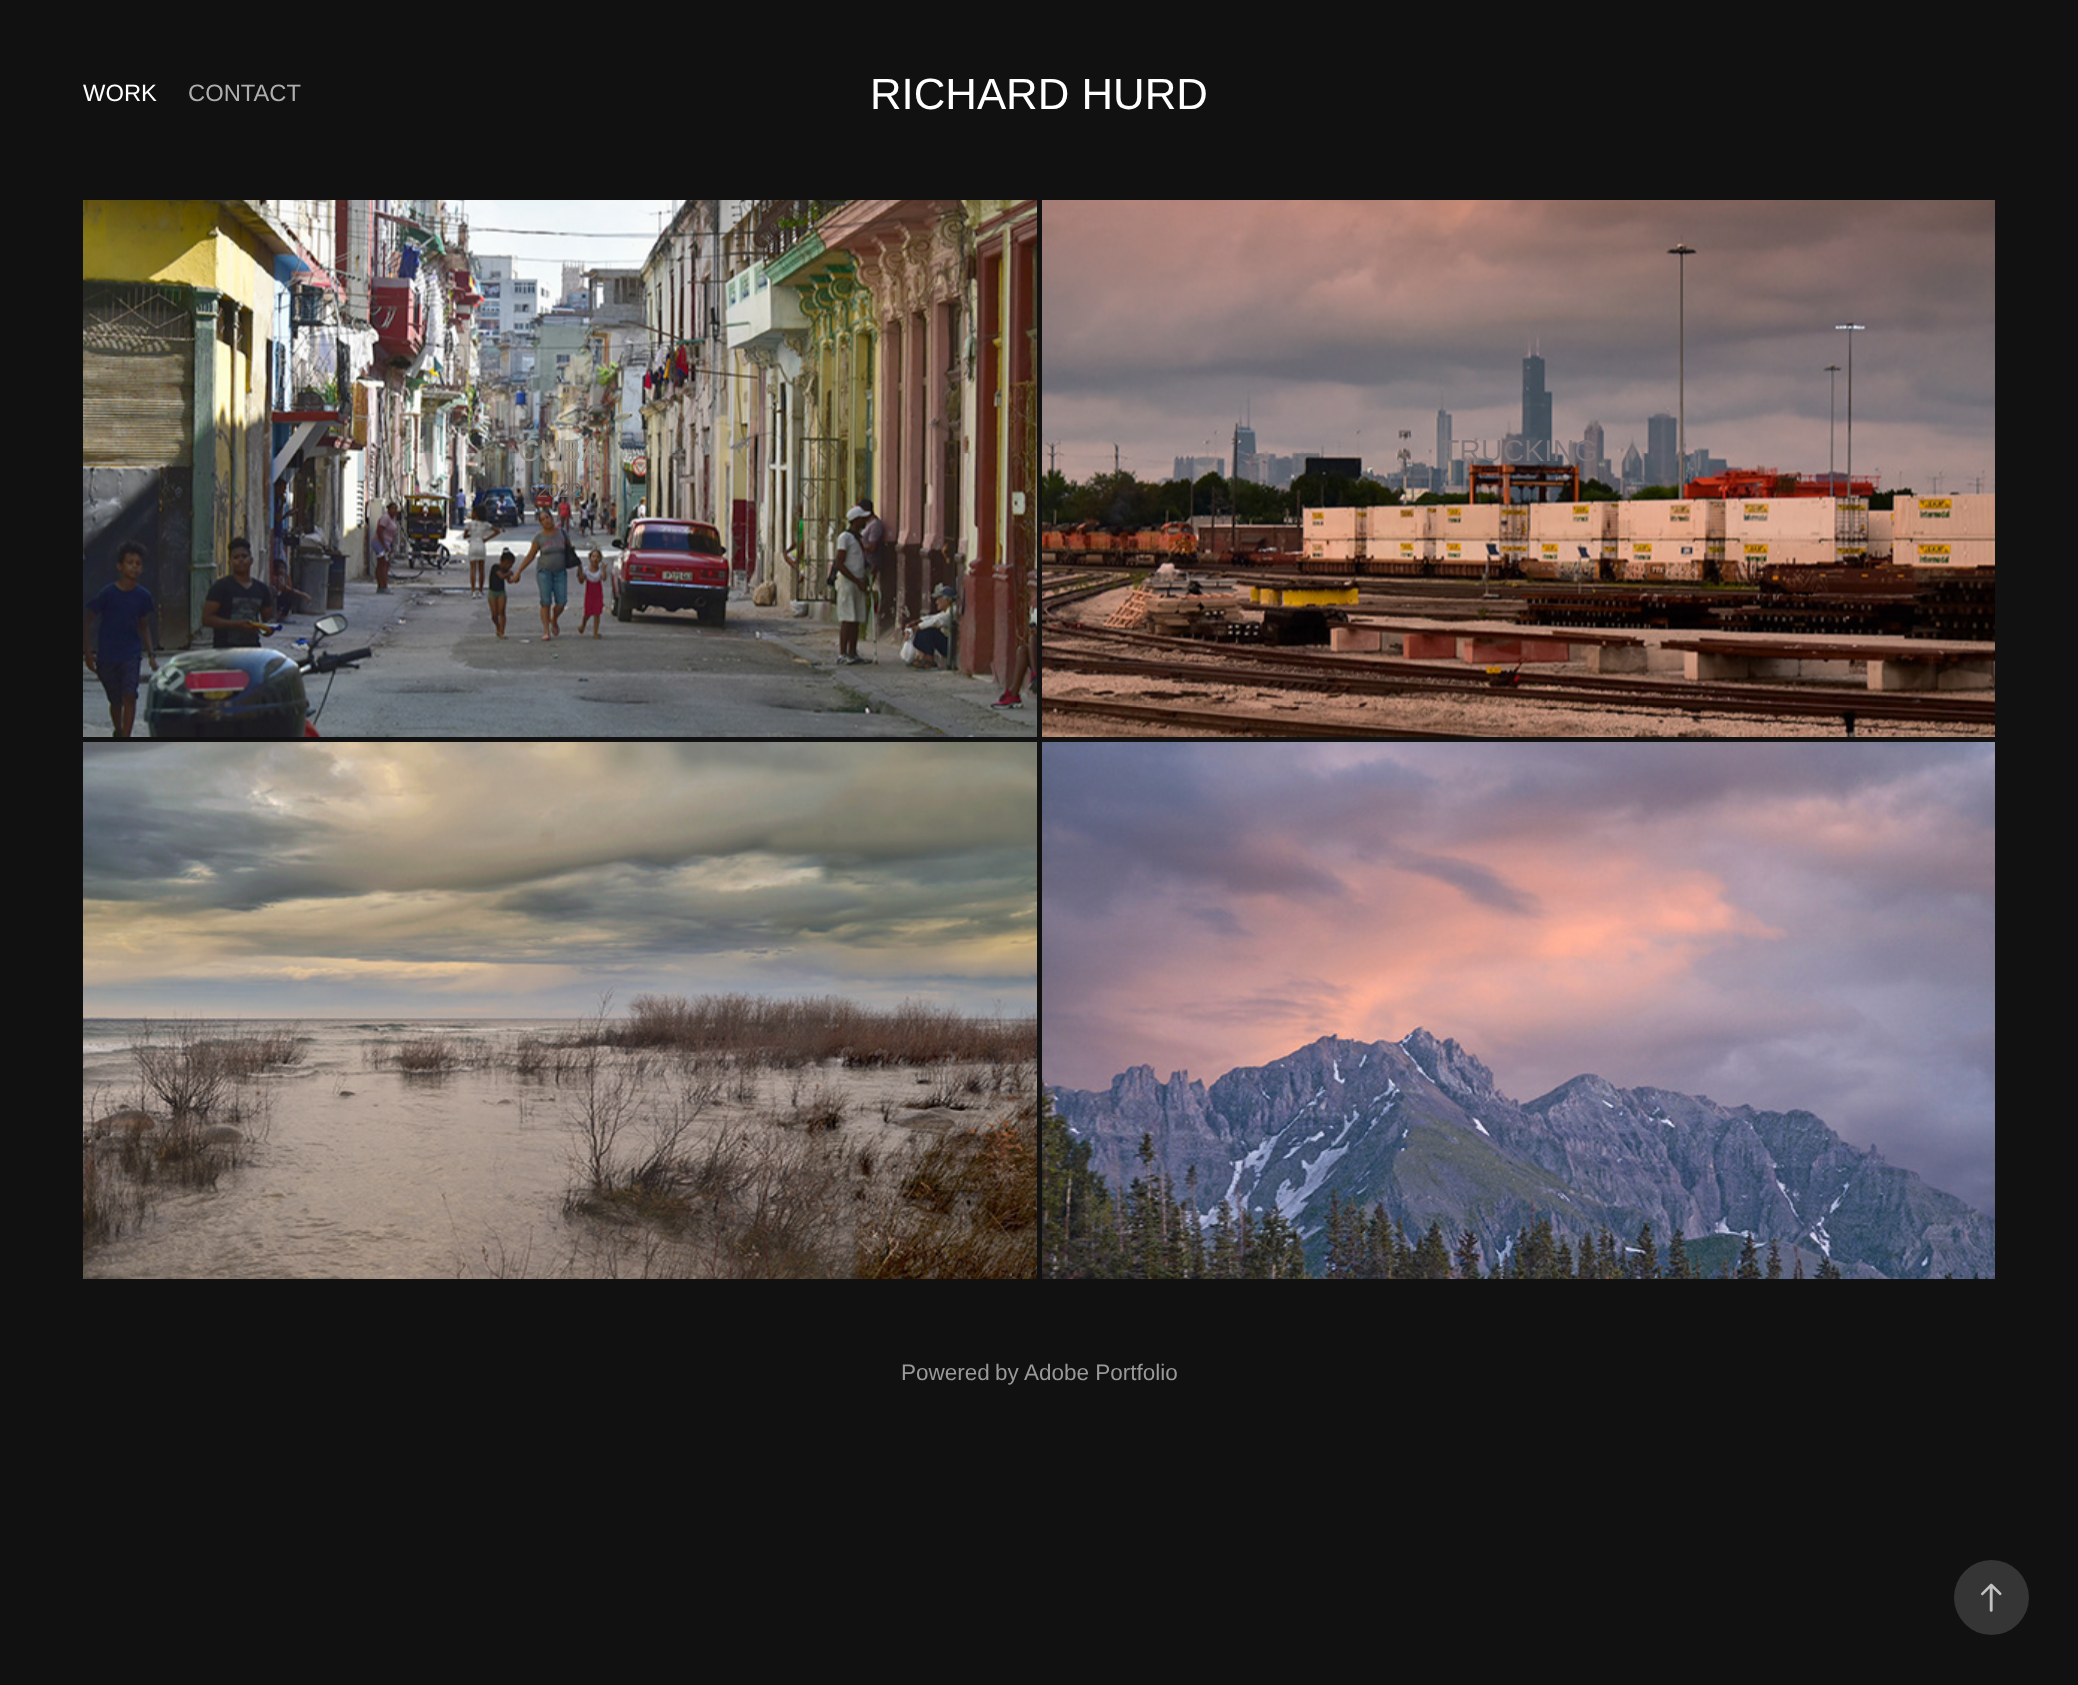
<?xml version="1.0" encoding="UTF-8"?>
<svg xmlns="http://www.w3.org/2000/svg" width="2078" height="1685">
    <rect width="100%" height="100%" fill="#111111"/>
    <text x="83" y="101" font-family="Liberation Sans" font-size="23.75" fill="#FFFFFF">WORK</text>
    <text x="188" y="101" font-family="Liberation Sans" font-size="23.75" fill="#AEAEAE">CONTACT</text>
    <text x="870" y="109" font-family="Liberation Sans" font-size="43.75" fill="#FFFFFF">RICHARD HURD</text>
    <image x="83" y="200" width="954" height="537" href="img_01.png"/>
    <text x="518" y="461" font-family="Liberation Sans" font-size="30" fill="#979188">CUBA</text>
    <text x="537" y="497" font-family="Liberation Sans" font-size="20" fill="#6D6462">2022</text>
    <image x="1042" y="200" width="953" height="537" href="img_02.png"/>
    <text x="1441" y="461" font-family="Liberation Sans" font-size="30" fill="#7C7477">TRUCKING</text>
    <image x="83" y="742" width="954" height="537" href="img_03.png"/>
    <image x="1042" y="742" width="953" height="537" href="img_04.png"/>
    <text x="901" y="1380" word-spacing="-1" font-family="Liberation Sans" font-size="22.5" fill="#999999">Powered by</text>
    <text x="1024" y="1380" font-family="Liberation Sans" font-size="22.5" fill="#999999">Adobe Portfolio</text>
    <circle cx="1991.5" cy="1597.5" r="37.5" fill="#353535"/>
    <image x="1981" y="1583" width="21" height="29" href="img_05.png"/>
</svg>
